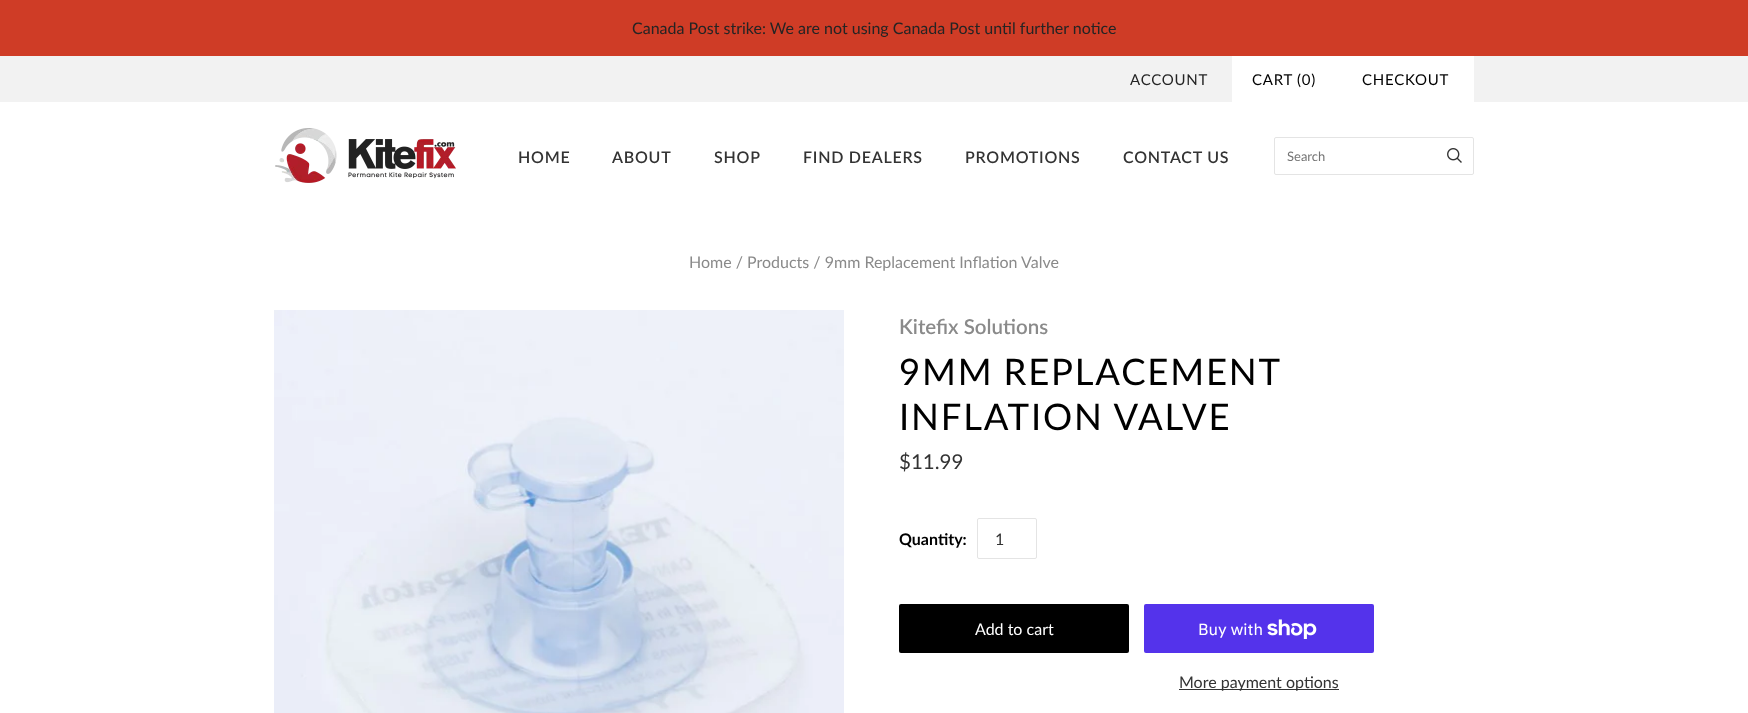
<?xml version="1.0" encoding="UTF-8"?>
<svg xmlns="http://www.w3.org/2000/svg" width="1748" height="713">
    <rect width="100%" height="100%" fill="#FFFFFF"/>
    <rect x="0" y="0" width="1748" height="56" fill="#CF3C26"/>
    <text x="632" y="34" font-family="Lato" font-size="16" fill="#242424">Canada Post strike: We are not using Canada Post until further notice</text>
    <rect x="0" y="56" width="1748" height="46" fill="#F2F2F2"/>
    <text x="1130" y="85" font-family="Lato" font-size="15" letter-spacing="0.75" fill="#242424">ACCOUNT</text>
    <rect x="1232" y="56" width="242" height="46" fill="#FFFFFF"/>
    <text x="1252" y="85" font-family="Lato" font-size="15" letter-spacing="0.75" fill="#000000">CART</text>
    <text x="1297" y="85" font-family="Lato" font-size="15" letter-spacing="0.75" fill="#000000">(0)</text>
    <text x="1362" y="85" font-family="Lato" font-size="15" letter-spacing="0.75" fill="#000000">CHECKOUT</text>
    <image x="275" y="128" width="181" height="55" href="img_01.png"/>
    <text x="518" y="163" font-family="Lato" font-size="16" font-weight="600" letter-spacing="0.75" fill="#333333">HOME</text>
    <text x="612" y="163" font-family="Lato" font-size="16" font-weight="600" letter-spacing="0.75" fill="#333333">ABOUT</text>
    <text x="714" y="163" font-family="Lato" font-size="16" font-weight="600" letter-spacing="0.75" fill="#333333">SHOP</text>
    <text x="803" y="163" font-family="Lato" font-size="16" font-weight="600" letter-spacing="0.75" fill="#333333">FIND DEALERS</text>
    <text x="965" y="163" font-family="Lato" font-size="16" font-weight="600" letter-spacing="0.75" fill="#333333">PROMOTIONS</text>
    <text x="1123" y="163" font-family="Lato" font-size="16" font-weight="600" letter-spacing="0.75" fill="#333333">CONTACT US</text>
    <rect x="1274.5" y="137.5" width="199" height="37" rx="1.5" fill="none" stroke="#E4E4E4"/>
    <text x="1287" y="161" font-family="Lato" font-size="13" fill="#757575">Search</text>
    <image x="1447" y="148" width="15" height="15" href="img_02.png"/>
    <text x="689" y="268" font-family="Lato" font-size="16" fill="#8A8A8A">Home / Products / 9mm Replacement Inflation Valve</text>
    <image x="274" y="310" width="570" height="403" href="img_03.png"/>
    <text x="899" y="334" font-family="Lato" font-size="20.5" font-weight="600" fill="#8A8A8A">Kitefix Solutions</text>
    <text font-family="Lato" font-size="36.5" letter-spacing="1.8" fill="#000000">
        <tspan x="899" y="385" word-spacing="-1">9MM REPLACEMENT</tspan>
        <tspan x="899" y="430">INFLATION VALVE</tspan>
    </text>
    <text x="899" y="469" font-family="Lato" font-size="20.5" fill="#333333">$11.99</text>
    <text x="899" y="545" font-family="Lato" font-size="16" font-weight="700" fill="#000000">Quantity:</text>
    <rect x="977.5" y="518.5" width="59" height="40" rx="1.5" fill="none" stroke="#E4E4E4"/>
    <text x="995" y="545" font-family="Lato" font-size="16" fill="#333333">1</text>
    <rect x="899" y="604" width="230" height="49" rx="2" fill="#000000"/>
    <text x="975" y="635" font-family="Lato" font-size="16" fill="#FFFFFF">Add to cart</text>
    <rect x="1144" y="604" width="230" height="49" rx="2" fill="#5433EB"/>
    <text x="1198" y="635" font-family="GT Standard" font-size="16" fill="#FFFFFF">Buy with</text>
    <image x="1267" y="619" width="50" height="20" href="img_04.png"/>
    <rect x="1179" y="689" width="160" height="1" fill="#333333"/>
    <text x="1179" y="688" font-family="Lato" font-size="16" fill="#333333">More payment options</text>
</svg>
